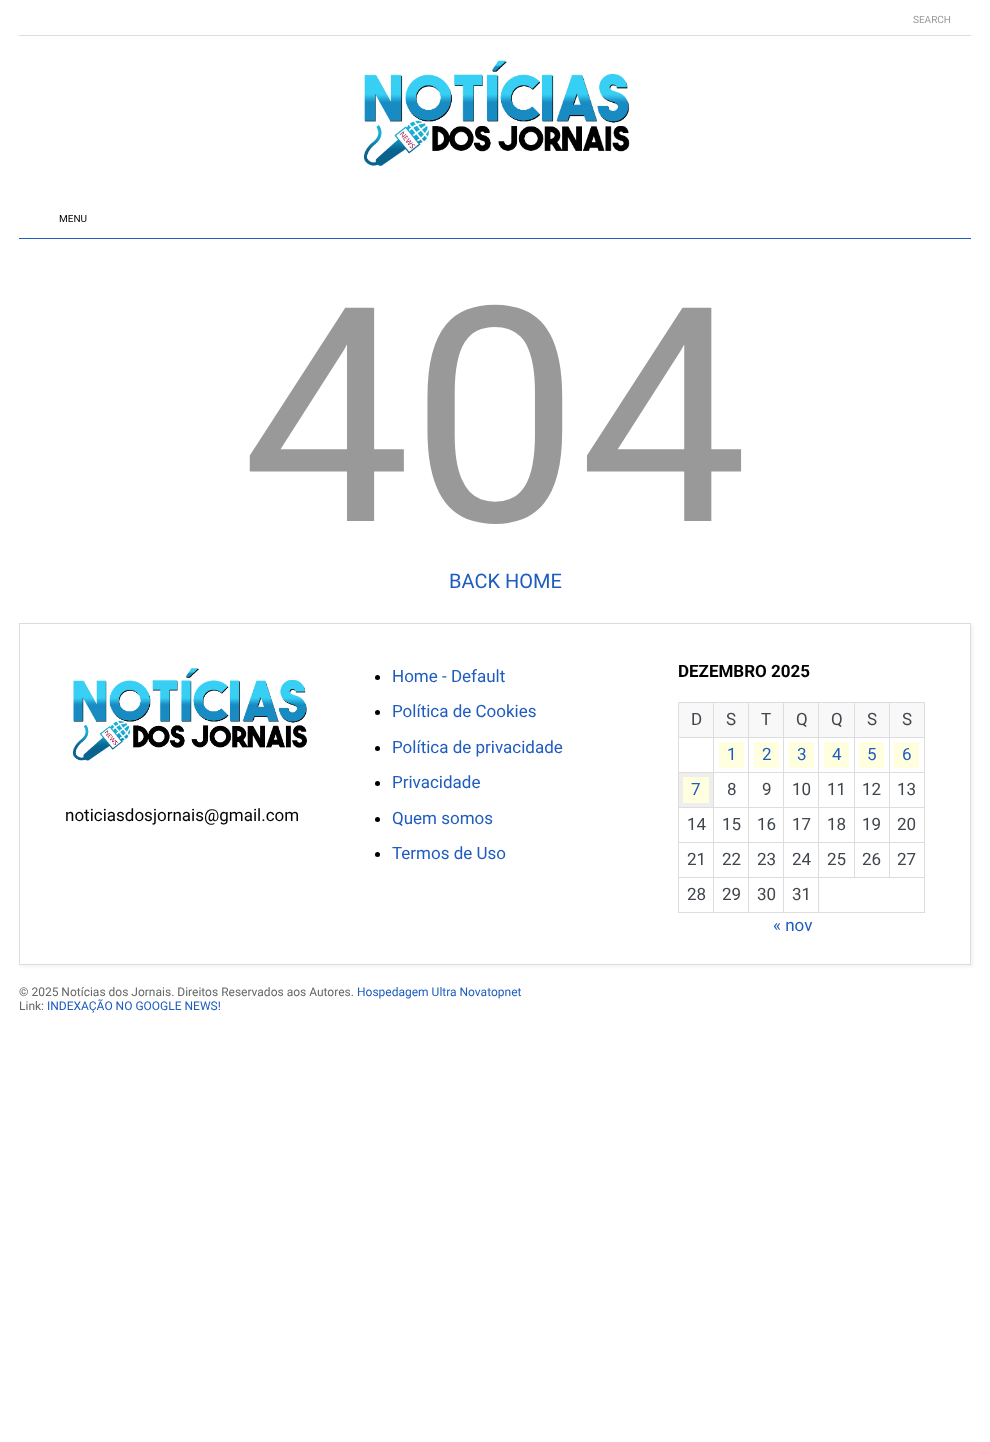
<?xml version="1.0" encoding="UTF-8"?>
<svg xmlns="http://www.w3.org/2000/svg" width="990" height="1442">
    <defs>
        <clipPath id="clip1"><path d="M 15 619 H 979 V 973 H 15 Z M 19 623 H 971 V 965 H 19 Z" clip-rule="evenodd"/></clipPath>
        <filter id="blur1" x="-50%" y="-200%" width="200%" height="500%"><feGaussianBlur stdDeviation="1.5"/></filter>
    </defs>
    <rect width="100%" height="100%" fill="#FFFFFF"/>
    <rect x="19" y="35" width="952" height="1" fill="#DDDDDD"/>
    <text x="913" y="23" font-family="Roboto" font-size="10" fill="#999999">SEARCH</text>
    <image x="363" y="60" width="267" height="107" href="img_01.png"/>
    <text x="59" y="222" font-family="Roboto" font-size="10" fill="#000000">MENU</text>
    <rect x="19" y="238" width="952" height="1" fill="#1E5CBF"/>
    <text x="242" y="521" font-family="Roboto" font-size="300" fill="#999999">404</text>
    <text x="449" y="588" font-family="Roboto" font-size="20" fill="#1E5CBF">BACK HOME</text>
    <g clip-path="url(#clip1)">
        <rect x="21" y="625" width="952" height="342" fill="#000000" fill-opacity="0.05" filter="url(#blur1)"/>
    </g>
    <rect x="19.5" y="623.5" width="951" height="341" fill="none" stroke="#DDDDDD"/>
    <image x="72" y="668" width="235" height="93" href="img_02.png"/>
    <text x="65" y="821" font-family="Roboto" font-size="17" fill="#000000">noticiasdosjornais@gmail.com</text>
    <circle cx="377.5" cy="677.5" r="2.5" fill="#000000"/>
    <text x="392" y="682" font-family="Roboto" font-size="17" fill="#1E5CBF">Home - Default</text>
    <circle cx="377.5" cy="712.5" r="2.5" fill="#000000"/>
    <text x="392" y="717" font-family="Roboto" font-size="17" fill="#1E5CBF">Política de Cookies</text>
    <circle cx="377.5" cy="748.5" r="2.5" fill="#000000"/>
    <text x="392" y="753" font-family="Roboto" font-size="17" fill="#1E5CBF">Política de privacidade</text>
    <circle cx="377.5" cy="783.5" r="2.5" fill="#000000"/>
    <text x="392" y="788" font-family="Roboto" font-size="17" fill="#1E5CBF">Privacidade</text>
    <circle cx="377.5" cy="819.5" r="2.5" fill="#000000"/>
    <text x="392" y="824" font-family="Roboto" font-size="17" fill="#1E5CBF">Quem somos</text>
    <circle cx="377.5" cy="854.5" r="2.5" fill="#000000"/>
    <text x="392" y="859" font-family="Roboto" font-size="17" fill="#1E5CBF">Termos de Uso</text>
    <text x="678" y="677" font-family="Roboto" font-size="17" font-weight="700" fill="#000000">DEZEMBRO 2025</text>
    <rect x="679" y="703" width="245" height="34" fill="#F8F8F8"/>
    <rect x="889" y="702" width="36" height="1" fill="#DDDDDD"/>
    <rect x="889" y="737" width="36" height="1" fill="#DDDDDD"/>
    <rect x="889" y="772" width="36" height="1" fill="#DDDDDD"/>
    <rect x="889" y="807" width="36" height="1" fill="#DDDDDD"/>
    <rect x="889" y="842" width="36" height="1" fill="#DDDDDD"/>
    <rect x="818" y="877" width="107" height="1" fill="#DDDDDD"/>
    <rect x="889" y="842" width="1" height="36" fill="#DDDDDD"/>
    <rect x="854" y="842" width="36" height="1" fill="#DDDDDD"/>
    <rect x="889" y="807" width="1" height="36" fill="#DDDDDD"/>
    <rect x="854" y="807" width="36" height="1" fill="#DDDDDD"/>
    <rect x="889" y="772" width="1" height="36" fill="#DDDDDD"/>
    <rect x="854" y="772" width="36" height="1" fill="#DDDDDD"/>
    <rect x="889" y="737" width="1" height="36" fill="#DDDDDD"/>
    <rect x="854" y="737" width="36" height="1" fill="#DDDDDD"/>
    <rect x="889" y="702" width="1" height="36" fill="#DDDDDD"/>
    <rect x="854" y="702" width="36" height="1" fill="#DDDDDD"/>
    <rect x="854" y="842" width="1" height="36" fill="#DDDDDD"/>
    <rect x="818" y="842" width="37" height="1" fill="#DDDDDD"/>
    <rect x="854" y="807" width="1" height="36" fill="#DDDDDD"/>
    <rect x="818" y="807" width="37" height="1" fill="#DDDDDD"/>
    <rect x="854" y="772" width="1" height="36" fill="#DDDDDD"/>
    <rect x="818" y="772" width="37" height="1" fill="#DDDDDD"/>
    <rect x="854" y="737" width="1" height="36" fill="#DDDDDD"/>
    <rect x="818" y="737" width="37" height="1" fill="#DDDDDD"/>
    <rect x="854" y="702" width="1" height="36" fill="#DDDDDD"/>
    <rect x="818" y="702" width="37" height="1" fill="#DDDDDD"/>
    <rect x="924" y="877" width="1" height="36" fill="#DDDDDD"/>
    <rect x="818" y="912" width="107" height="1" fill="#DDDDDD"/>
    <rect x="818" y="877" width="1" height="36" fill="#DDDDDD"/>
    <rect x="783" y="877" width="36" height="1" fill="#DDDDDD"/>
    <rect x="818" y="842" width="1" height="36" fill="#DDDDDD"/>
    <rect x="783" y="842" width="36" height="1" fill="#DDDDDD"/>
    <rect x="818" y="807" width="1" height="36" fill="#DDDDDD"/>
    <rect x="783" y="807" width="36" height="1" fill="#DDDDDD"/>
    <rect x="818" y="772" width="1" height="36" fill="#DDDDDD"/>
    <rect x="783" y="772" width="36" height="1" fill="#DDDDDD"/>
    <rect x="818" y="737" width="1" height="36" fill="#DDDDDD"/>
    <rect x="783" y="737" width="36" height="1" fill="#DDDDDD"/>
    <rect x="818" y="702" width="1" height="36" fill="#DDDDDD"/>
    <rect x="783" y="702" width="36" height="1" fill="#DDDDDD"/>
    <rect x="783" y="912" width="36" height="1" fill="#DDDDDD"/>
    <rect x="783" y="877" width="1" height="36" fill="#DDDDDD"/>
    <rect x="748" y="877" width="36" height="1" fill="#DDDDDD"/>
    <rect x="783" y="842" width="1" height="36" fill="#DDDDDD"/>
    <rect x="748" y="842" width="36" height="1" fill="#DDDDDD"/>
    <rect x="783" y="807" width="1" height="36" fill="#DDDDDD"/>
    <rect x="748" y="807" width="36" height="1" fill="#DDDDDD"/>
    <rect x="783" y="772" width="1" height="36" fill="#DDDDDD"/>
    <rect x="748" y="772" width="36" height="1" fill="#DDDDDD"/>
    <rect x="783" y="737" width="1" height="36" fill="#DDDDDD"/>
    <rect x="748" y="737" width="36" height="1" fill="#DDDDDD"/>
    <rect x="783" y="702" width="1" height="36" fill="#DDDDDD"/>
    <rect x="748" y="702" width="36" height="1" fill="#DDDDDD"/>
    <rect x="748" y="912" width="36" height="1" fill="#DDDDDD"/>
    <rect x="748" y="877" width="1" height="36" fill="#DDDDDD"/>
    <rect x="713" y="877" width="36" height="1" fill="#DDDDDD"/>
    <rect x="748" y="842" width="1" height="36" fill="#DDDDDD"/>
    <rect x="713" y="842" width="36" height="1" fill="#DDDDDD"/>
    <rect x="748" y="807" width="1" height="36" fill="#DDDDDD"/>
    <rect x="713" y="807" width="36" height="1" fill="#DDDDDD"/>
    <rect x="748" y="772" width="1" height="36" fill="#DDDDDD"/>
    <rect x="713" y="772" width="36" height="1" fill="#DDDDDD"/>
    <rect x="748" y="737" width="1" height="36" fill="#DDDDDD"/>
    <rect x="713" y="737" width="36" height="1" fill="#DDDDDD"/>
    <rect x="748" y="702" width="1" height="36" fill="#DDDDDD"/>
    <rect x="713" y="702" width="36" height="1" fill="#DDDDDD"/>
    <rect x="713" y="912" width="36" height="1" fill="#DDDDDD"/>
    <rect x="713" y="877" width="1" height="36" fill="#DDDDDD"/>
    <rect x="678" y="877" width="36" height="1" fill="#DDDDDD"/>
    <rect x="713" y="842" width="1" height="36" fill="#DDDDDD"/>
    <rect x="678" y="842" width="36" height="1" fill="#DDDDDD"/>
    <rect x="713" y="807" width="1" height="36" fill="#DDDDDD"/>
    <rect x="678" y="807" width="36" height="1" fill="#DDDDDD"/>
    <rect x="713" y="772" width="1" height="36" fill="#DDDDDD"/>
    <rect x="678" y="772" width="36" height="1" fill="#DDDDDD"/>
    <rect x="713" y="737" width="1" height="36" fill="#DDDDDD"/>
    <rect x="678" y="737" width="36" height="1" fill="#DDDDDD"/>
    <rect x="713" y="702" width="1" height="36" fill="#DDDDDD"/>
    <rect x="678" y="702" width="36" height="1" fill="#DDDDDD"/>
    <rect x="678" y="912" width="36" height="1" fill="#DDDDDD"/>
    <rect x="678" y="877" width="1" height="36" fill="#DDDDDD"/>
    <rect x="678" y="842" width="1" height="36" fill="#DDDDDD"/>
    <rect x="678" y="807" width="1" height="36" fill="#DDDDDD"/>
    <rect x="678" y="772" width="1" height="36" fill="#DDDDDD"/>
    <rect x="678" y="737" width="1" height="36" fill="#DDDDDD"/>
    <rect x="678" y="702" width="1" height="36" fill="#DDDDDD"/>
    <text x="691" y="725" font-family="Roboto" font-size="17" fill="#40464D">D</text>
    <text x="726" y="725" font-family="Roboto" font-size="17" fill="#40464D">S</text>
    <text x="761" y="725" font-family="Roboto" font-size="17" fill="#40464D">T</text>
    <text x="796" y="725" font-family="Roboto" font-size="17" fill="#40464D">Q</text>
    <text x="831" y="725" font-family="Roboto" font-size="17" fill="#40464D">Q</text>
    <text x="867" y="725" font-family="Roboto" font-size="17" fill="#40464D">S</text>
    <rect x="924" y="842" width="1" height="36" fill="#DDDDDD"/>
    <rect x="924" y="807" width="1" height="36" fill="#DDDDDD"/>
    <rect x="924" y="772" width="1" height="36" fill="#DDDDDD"/>
    <rect x="924" y="737" width="1" height="36" fill="#DDDDDD"/>
    <rect x="924" y="702" width="1" height="36" fill="#DDDDDD"/>
    <text x="902" y="725" font-family="Roboto" font-size="17" fill="#40464D">S</text>
    <rect x="719" y="742" width="25" height="26" fill="#FFFFE0"/>
    <text x="727" y="760" font-family="Roboto" font-size="17" fill="#1E5CBF">1</text>
    <rect x="754" y="742" width="25" height="26" fill="#FFFFE0"/>
    <text x="762" y="760" font-family="Roboto" font-size="17" fill="#1E5CBF">2</text>
    <rect x="789" y="742" width="25" height="26" fill="#FFFFE0"/>
    <text x="797" y="760" font-family="Roboto" font-size="17" fill="#1E5CBF">3</text>
    <rect x="824" y="742" width="25" height="26" fill="#FFFFE0"/>
    <text x="832" y="760" font-family="Roboto" font-size="17" fill="#1E5CBF">4</text>
    <rect x="859" y="742" width="25" height="26" fill="#FFFFE0"/>
    <text x="867" y="760" font-family="Roboto" font-size="17" fill="#1E5CBF">5</text>
    <rect x="894" y="742" width="25" height="26" fill="#FFFFE0"/>
    <text x="902" y="760" font-family="Roboto" font-size="17" fill="#1E5CBF">6</text>
    <rect x="679" y="773" width="34" height="34" fill="#EEEEEE"/>
    <rect x="683" y="777" width="26" height="26" fill="#FFFFE0"/>
    <text x="691" y="795" font-family="Roboto" font-size="17" fill="#1E5CBF">7</text>
    <text x="727" y="795" font-family="Roboto" font-size="17" fill="#40464D">8</text>
    <text x="762" y="795" font-family="Roboto" font-size="17" fill="#40464D">9</text>
    <text x="792" y="795" font-family="Roboto" font-size="17" fill="#40464D">10</text>
    <text x="827" y="795" font-family="Roboto" font-size="17" fill="#40464D">11</text>
    <text x="862" y="795" font-family="Roboto" font-size="17" fill="#40464D">12</text>
    <text x="897" y="795" font-family="Roboto" font-size="17" fill="#40464D">13</text>
    <text x="687" y="830" font-family="Roboto" font-size="17" fill="#40464D">14</text>
    <text x="722" y="830" font-family="Roboto" font-size="17" fill="#40464D">15</text>
    <text x="757" y="830" font-family="Roboto" font-size="17" fill="#40464D">16</text>
    <text x="792" y="830" font-family="Roboto" font-size="17" fill="#40464D">17</text>
    <text x="827" y="830" font-family="Roboto" font-size="17" fill="#40464D">18</text>
    <text x="862" y="830" font-family="Roboto" font-size="17" fill="#40464D">19</text>
    <text x="897" y="830" font-family="Roboto" font-size="17" fill="#40464D">20</text>
    <text x="687" y="865" font-family="Roboto" font-size="17" fill="#40464D">21</text>
    <text x="722" y="865" font-family="Roboto" font-size="17" fill="#40464D">22</text>
    <text x="757" y="865" font-family="Roboto" font-size="17" fill="#40464D">23</text>
    <text x="792" y="865" font-family="Roboto" font-size="17" fill="#40464D">24</text>
    <text x="827" y="865" font-family="Roboto" font-size="17" fill="#40464D">25</text>
    <text x="862" y="865" font-family="Roboto" font-size="17" fill="#40464D">26</text>
    <text x="897" y="865" font-family="Roboto" font-size="17" fill="#40464D">27</text>
    <text x="687" y="900" font-family="Roboto" font-size="17" fill="#40464D">28</text>
    <text x="722" y="900" font-family="Roboto" font-size="17" fill="#40464D">29</text>
    <text x="757" y="900" font-family="Roboto" font-size="17" fill="#40464D">30</text>
    <text x="792" y="900" font-family="Roboto" font-size="17" fill="#40464D">31</text>
    <text x="773" y="931" font-family="Roboto" font-size="17" fill="#1E5CBF">« nov</text>
    <text x="19" y="996" font-family="Roboto" font-size="12" fill="#666666">© 2025 Notícias dos Jornais. Direitos Reservados aos Autores.</text>
    <text x="357" y="996" font-family="Roboto" font-size="12" fill="#1E5CBF">Hospedagem Ultra Novatopnet</text>
    <text x="19" y="1010" font-family="Roboto" font-size="12" fill="#666666">Link:</text>
    <text x="47" y="1010" font-family="Roboto" font-size="12" fill="#1E5CBF">INDEXAÇÃO NO GOOGLE NEWS!</text>
</svg>
